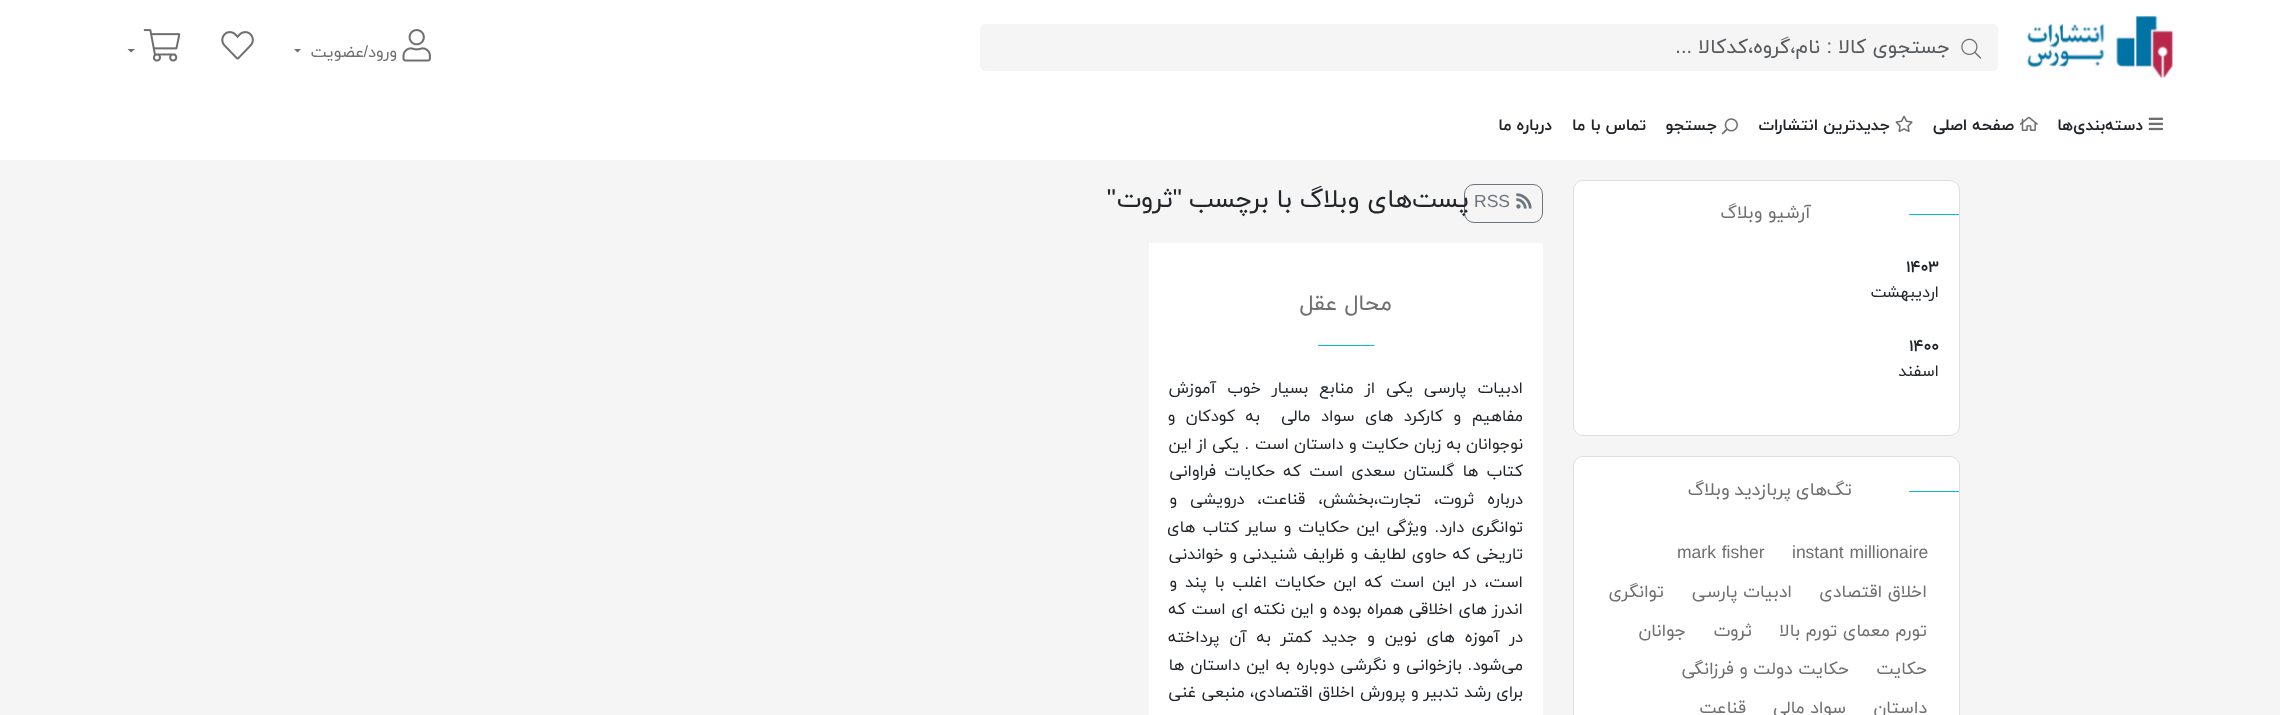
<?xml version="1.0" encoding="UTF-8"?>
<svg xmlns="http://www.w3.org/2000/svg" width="2280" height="715">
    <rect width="100%" height="100%" fill="#F5F5F5"/>
    <rect x="0" y="0" width="2280" height="160" fill="#FFFFFF"/>
    <image x="2027" y="15" width="146" height="63" href="img_01.png"/>
    <rect x="980" y="24" width="1018" height="47" rx="5" fill="#F5F5F5"/>
    <image x="1961" y="38" width="21" height="21" href="img_02.png"/>
    <text x="1950" y="53" font-family="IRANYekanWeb" font-size="20" direction="rtl" fill="#56595C">جستجوی کالا</text>
    <text x="1832" y="53" font-family="Liberation Sans" font-size="20" direction="rtl" fill="#56595C">:</text>
    <text x="1820" y="53" font-family="IRANYekanWeb" font-size="20" direction="rtl" fill="#56595C">نام،گروه،کدکالا</text>
    <text x="1692" y="53" font-family="Liberation Sans" font-size="20" direction="rtl" fill="#56595C">...</text>
    <image x="402" y="29" width="29" height="33" href="img_03.png"/>
    <text x="368" y="57" font-family="Liberation Sans" font-size="16.25" direction="rtl" fill="#6F6F6F">/</text>
    <text x="397" y="57" font-family="IRANYekanWeb" font-size="16.25" direction="rtl" fill="#6F6F6F">ورود</text>
    <text x="364" y="57" font-family="IRANYekanWeb" font-size="16.25" direction="rtl" fill="#6F6F6F">عضویت</text>
    <path d="M 294 49 H 301 L 297.5 52.5 Z" fill="#6F6F6F"/>
    <image x="221" y="31" width="33" height="29" href="img_04.png"/>
    <image x="143" y="29" width="38" height="33" href="img_05.png"/>
    <path d="M 127.5 49 H 135 L 131 52.5 Z" fill="#6F6F6F"/>
    <image x="2148" y="117" width="15" height="14" href="img_06.png"/>
    <text x="2143" y="130" font-family="IRANYekanWeb" font-size="16.25" font-weight="700" direction="rtl" fill="#212529">دسته‌بندی‌ها</text>
    <image x="2019" y="116" width="19" height="15" href="img_07.png"/>
    <text x="2014" y="130" font-family="IRANYekanWeb" font-size="16.25" font-weight="700" direction="rtl" fill="#212529">صفحه اصلی</text>
    <image x="1895" y="115" width="18" height="17" href="img_08.png"/>
    <text x="1890" y="130" font-family="IRANYekanWeb" font-size="16.25" font-weight="700" direction="rtl" fill="#212529">جدیدترین انتشارات</text>
    <image x="1721" y="118" width="17" height="17" href="img_09.png"/>
    <text x="1717" y="130" font-family="IRANYekanWeb" font-size="16.25" font-weight="700" direction="rtl" fill="#212529">جستجو</text>
    <text x="1646" y="130" font-family="IRANYekanWeb" font-size="16.25" font-weight="700" direction="rtl" fill="#212529">تماس با ما</text>
    <text x="1552" y="130" font-family="IRANYekanWeb" font-size="16.25" font-weight="700" direction="rtl" fill="#212529">درباره ما</text>
    <rect x="1573.5" y="180.5" width="386" height="255" rx="9.5" fill="#FFFFFF" stroke="#DEDEDE"/>
    <rect x="1909" y="214" width="50" height="1" fill="#00BFD6"/>
    <text x="1811" y="218" font-family="IRANYekanWeb" font-size="18" direction="rtl" fill="#6F6F6F">آرشیو وبلاگ</text>
    <text x="1906" y="272" font-family="IRANYekanWeb" font-size="16.25" font-weight="700" fill="#212529">۱۴۰۳</text>
    <text x="1939" y="297" font-family="IRANYekanWeb" font-size="16.25" direction="rtl" fill="#212529">اردیبهشت</text>
    <text x="1909" y="351" font-family="IRANYekanWeb" font-size="16.25" font-weight="700" fill="#212529">۱۴۰۰</text>
    <text x="1939" y="376" font-family="IRANYekanWeb" font-size="16.25" direction="rtl" fill="#212529">اسفند</text>
    <rect x="1573.5" y="456.5" width="386" height="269" rx="9.5" fill="#FFFFFF" stroke="#DEDEDE"/>
    <rect x="1909" y="491" width="50" height="1" fill="#00BFD6"/>
    <text x="1827" y="495" word-spacing="-1" font-family="IRANYekanWeb" font-size="18" direction="rtl" fill="#6F6F6F">های پربازدید وبلاگ</text>
    <text x="1852" y="495" font-family="IRANYekanWeb" font-size="18" direction="rtl" fill="#6F6F6F">تگ</text>
    <text x="1792" y="558" word-spacing="1" font-family="Liberation Sans" font-size="17.5" fill="#6F6F6F">instant millionaire</text>
    <text x="1677" y="558" word-spacing="1" font-family="Liberation Sans" font-size="17.5" fill="#6F6F6F">mark fisher</text>
    <text x="1927" y="597" font-family="IRANYekanWeb" font-size="17.5" direction="rtl" fill="#6F6F6F">اخلاق اقتصادی</text>
    <text x="1792" y="597" font-family="IRANYekanWeb" font-size="17.5" direction="rtl" fill="#6F6F6F">ادبیات پارسی</text>
    <text x="1664" y="597" font-family="IRANYekanWeb" font-size="17.5" direction="rtl" fill="#6F6F6F">توانگری</text>
    <text x="1927" y="636" font-family="IRANYekanWeb" font-size="17.5" direction="rtl" fill="#6F6F6F">تورم معمای تورم بالا</text>
    <text x="1752" y="636" font-family="IRANYekanWeb" font-size="17.5" direction="rtl" fill="#6F6F6F">ثروت</text>
    <text x="1686" y="636" font-family="IRANYekanWeb" font-size="17.5" direction="rtl" fill="#6F6F6F">جوانان</text>
    <text x="1927" y="674" font-family="IRANYekanWeb" font-size="17.5" direction="rtl" fill="#6F6F6F">حکایت</text>
    <text x="1849" y="674" font-family="IRANYekanWeb" font-size="17.5" direction="rtl" fill="#6F6F6F">حکایت دولت و فرزانگی</text>
    <text x="1927" y="713" font-family="IRANYekanWeb" font-size="17.5" direction="rtl" fill="#6F6F6F">داستان</text>
    <text x="1846" y="713" font-family="IRANYekanWeb" font-size="17.5" direction="rtl" fill="#6F6F6F">سواد مالی</text>
    <text x="1746" y="713" font-family="IRANYekanWeb" font-size="17.5" direction="rtl" fill="#6F6F6F">قناعت</text>
    <text x="1412" y="207" word-spacing="-0.5" font-family="IRANYekanWeb" font-size="25.75" direction="rtl" fill="#212529">های وبلاگ با برچسب</text>
    <text x="1182" y="207" font-family="Liberation Sans" font-size="25.75" direction="rtl" fill="#212529">"</text>
    <text x="1173" y="207" font-family="IRANYekanWeb" font-size="25.75" direction="rtl" fill="#212529">ثروت</text>
    <text x="1116" y="207" font-family="Liberation Sans" font-size="25.75" direction="rtl" fill="#212529">"</text>
    <rect x="1464.5" y="184.5" width="78" height="38" rx="9.5" fill="none" stroke="#6C757D"/>
    <image x="1516" y="193" width="16" height="16" href="img_10.png"/>
    <text x="1474" y="207" font-family="Liberation Sans" font-size="17.5" fill="#6C757D">RSS</text>
    <text x="1469" y="207" font-family="IRANYekanWeb" font-size="25.75" direction="rtl" fill="#212529">پست</text>
    <rect x="1149" y="243" width="394" height="472" fill="#FFFFFF"/>
    <text x="1392" y="310" font-family="IRANYekanWeb" font-size="22.5" direction="rtl" fill="#6F6F6F">محال عقل</text>
    <rect x="1318" y="345" width="56" height="1" fill="#00BFD6"/>
    <text font-family="IRANYekanWeb" font-size="16.25" direction="rtl" fill="#212529" xml:space="preserve"><tspan x="1523" y="393" word-spacing="6">ادبیات پارسی یکی از منابع بسیار خوب آموزش</tspan><tspan x="1523" y="421" word-spacing="5.5">مفاهیم و کارکرد های سواد مالی  به کودکان و</tspan><tspan x="1523" y="449">نوجوانان به زبان حکایت و داستان است</tspan></text>
    <text x="1249" y="449" font-family="Liberation Sans" font-size="16.25" direction="rtl" fill="#212529">.</text>
    <text x="1239" y="449" font-family="IRANYekanWeb" font-size="16.25" direction="rtl" fill="#212529">یکی از این</text>
    <text font-family="IRANYekanWeb" font-size="16.25" direction="rtl" fill="#212529">
        <tspan x="1523" y="476" word-spacing="3">کتاب ها گلستان سعدی است که حکایات فراوانی</tspan>
        <tspan x="1523" y="504" word-spacing="8">درباره ثروت، تجارت،بخشش، قناعت، درویشی و</tspan>
        <tspan x="1523" y="532" word-spacing="2">توانگری دارد</tspan>
    </text>
    <text x="1439" y="532" font-family="Liberation Sans" font-size="16.25" direction="rtl" fill="#212529">.</text>
    <text x="1427" y="532" word-spacing="2" font-family="IRANYekanWeb" font-size="16.25" direction="rtl" fill="#212529">ویژگی این حکایات و سایر کتاب های</text>
    <text font-family="IRANYekanWeb" font-size="16.25" direction="rtl" fill="#212529">
        <tspan x="1523" y="559" word-spacing="0.75">تاریخی که حاوی لطایف و ظرایف شنیدنی و خواندنی</tspan>
        <tspan x="1523" y="587" word-spacing="2.75">است، در این است که این حکایات اغلب با پند و</tspan>
        <tspan x="1523" y="614" word-spacing="0.5">اندرز های اخلاقی همراه بوده و این نکته ای است که</tspan>
        <tspan x="1523" y="642" word-spacing="4.75">در آموزه های نوین و جدید کمتر به آن پرداخته</tspan>
        <tspan x="1523" y="670">می‌شود</tspan>
    </text>
    <text x="1472" y="670" font-family="Liberation Sans" font-size="16.25" direction="rtl" fill="#212529">.</text>
    <text x="1462" y="670" word-spacing="1" font-family="IRANYekanWeb" font-size="16.25" direction="rtl" fill="#212529">بازخوانی و نگرشی دوباره به این داستان ها</text>
    <text x="1523" y="697" word-spacing="0.25" font-family="IRANYekanWeb" font-size="16.25" direction="rtl" fill="#212529">برای رشد تدبیر و پرورش اخلاق اقتصادی، منبعی غنی</text>
</svg>
